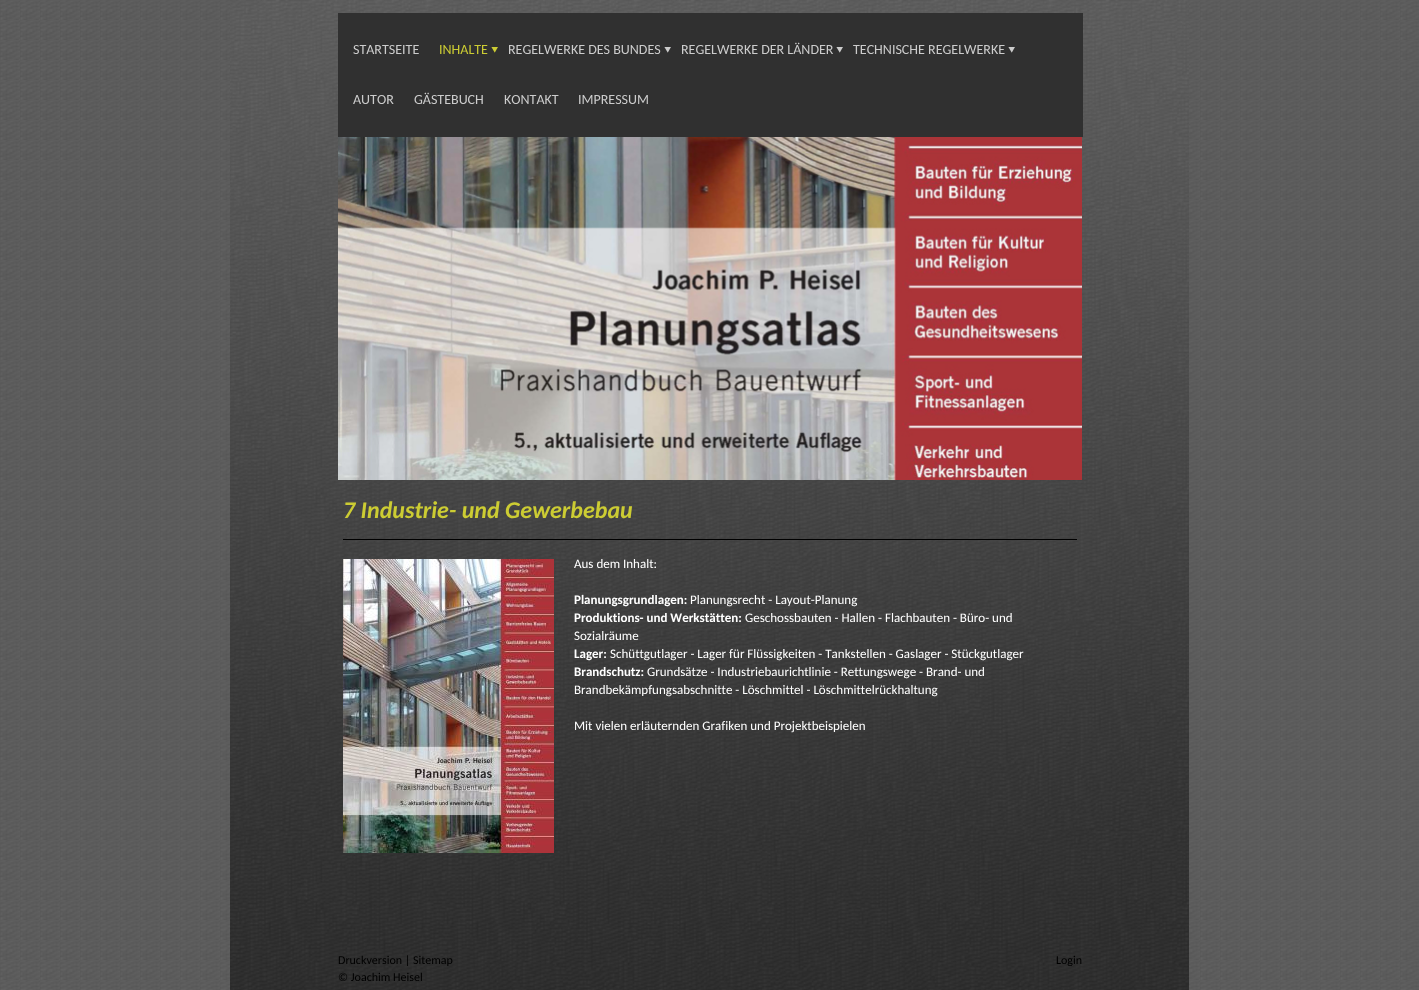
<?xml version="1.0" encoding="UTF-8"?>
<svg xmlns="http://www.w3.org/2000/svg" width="1419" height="990">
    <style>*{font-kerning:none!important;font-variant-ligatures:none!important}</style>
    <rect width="100%" height="100%" fill="#FFFFFF"/>
    <image x="0" y="0" width="1419" height="990" href="img_01.png"/>
    <image x="230" y="0" width="959" height="990" href="img_02.png"/>
    <rect x="338" y="13" width="745" height="124" fill="#303030"/>
    <text x="353" y="54" font-family="Carlito" font-size="14" fill="#CCCCCC">STARTSEITE</text>
    <image x="491" y="47" width="7" height="6" href="img_03.png"/>
    <text x="439" y="54" font-family="Carlito" font-size="14" fill="#CCCC33">INHALTE</text>
    <image x="664" y="47" width="7" height="6" href="img_04.png"/>
    <text x="508" y="54" font-family="Carlito" font-size="14" fill="#CCCCCC">REGELWERKE DES BUNDES</text>
    <image x="836" y="47" width="7" height="6" href="img_04.png"/>
    <text x="681" y="54" font-family="Carlito" font-size="14" fill="#CCCCCC">REGELWERKE DER LÄNDER</text>
    <image x="1008" y="47" width="7" height="6" href="img_04.png"/>
    <text x="853" y="54" font-family="Carlito" font-size="14" fill="#CCCCCC">TECHNISCHE REGELWERKE</text>
    <text x="353" y="104" font-family="Carlito" font-size="14" fill="#CCCCCC">AUTOR</text>
    <text x="414" y="104" font-family="Carlito" font-size="14" fill="#CCCCCC">GÄSTEBUCH</text>
    <text x="504" y="104" font-family="Carlito" font-size="14" fill="#CCCCCC">KONTAKT</text>
    <text x="578" y="104" font-family="Carlito" font-size="14" fill="#CCCCCC">IMPRESSUM</text>
    <image x="338" y="137" width="744" height="343" href="img_05.png"/>
    <text x="343" y="518" font-family="Carlito" font-size="24" font-weight="700" font-style="italic" fill="#CCCC33">7 Industrie- und Gewerbebau</text>
    <rect x="343" y="539" width="734" height="1" fill="#000000"/>
    <image x="343" y="559" width="211" height="294" href="img_06.png"/>
    <text x="574" y="568" font-family="Carlito" font-size="13" fill="#FFFFFF">Aus dem Inhalt:</text>
    <text x="574" y="604" font-family="Carlito" font-size="13" font-weight="700" fill="#FFFFFF">Planungsgrundlagen:</text>
    <text x="690" y="604" font-family="Carlito" font-size="13" fill="#FFFFFF">Planungsrecht - Layout-Planung</text>
    <text x="574" y="622" font-family="Carlito" font-size="13" font-weight="700" fill="#FFFFFF">Produktions- und Werkstätten:</text>
    <text x="745" y="622" font-family="Carlito" font-size="13" fill="#FFFFFF">Geschossbauten - Hallen - Flachbauten - Büro- und</text>
    <text x="574" y="640" font-family="Carlito" font-size="13" fill="#FFFFFF">Sozialräume</text>
    <text x="574" y="658" font-family="Carlito" font-size="13" font-weight="700" fill="#FFFFFF">Lager:</text>
    <text x="610" y="658" font-family="Carlito" font-size="13" fill="#FFFFFF">Schüttgutlager - Lager für Flüssigkeiten - Tankstellen - Gaslager - Stückgutlager</text>
    <text x="574" y="676" font-family="Carlito" font-size="13" font-weight="700" fill="#FFFFFF">Brandschutz:</text>
    <text x="647" y="676" font-family="Carlito" font-size="13" fill="#FFFFFF">Grundsätze - Industriebaurichtlinie - Rettungswege - Brand- und</text>
    <text x="574" y="694" font-family="Carlito" font-size="13" fill="#FFFFFF">Brandbekämpfungsabschnitte - Löschmittel - Löschmittelrückhaltung</text>
    <text x="574" y="730" font-family="Carlito" font-size="13" fill="#FFFFFF">Mit vielen erläuternden Grafiken und Projektbeispielen</text>
    <text font-family="Carlito" font-size="12" fill="#000000">
        <tspan x="338" y="964">Druckversion | Sitemap</tspan>
        <tspan x="338" y="981">© Joachim Heisel</tspan>
    </text>
    <text x="1056" y="964" font-family="Carlito" font-size="12" fill="#000000">Login</text>
</svg>
